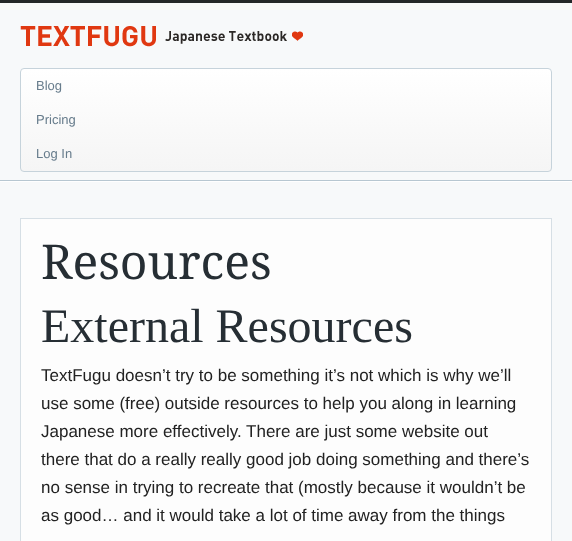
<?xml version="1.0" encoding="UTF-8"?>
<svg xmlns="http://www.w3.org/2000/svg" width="572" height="541">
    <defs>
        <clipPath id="clip1"><rect x="20" y="68" width="532" height="104" rx="4"/></clipPath>
        <linearGradient id="g1" gradientUnits="userSpaceOnUse" x1="286" y1="69" x2="286" y2="171"><stop offset="0" stop-color="#FFFFFF"/><stop offset="1" stop-color="#F5F5F5"/></linearGradient>
    </defs>
    <rect width="100%" height="100%" fill="#F7F9FA"/>
    <rect x="0" y="0" width="572" height="3" fill="#232729"/>
    <rect x="0" y="180" width="572" height="1" fill="#B7C7D1"/>
    <image x="20" y="26" width="283" height="21" href="img_01.png"/>
    <g clip-path="url(#clip1)">
        <rect x="20" y="69" width="532" height="102" fill="url(#g1)"/>
    </g>
    <rect x="20.5" y="68.5" width="531" height="103" rx="3.5" fill="none" stroke="#C6D3DB"/>
    <text x="36" y="90" font-family="Liberation Sans" font-size="13" fill="#677C8C">Blog</text>
    <text x="36" y="124" font-family="Liberation Sans" font-size="13" fill="#677C8C">Pricing</text>
    <text x="36" y="158" font-family="Liberation Sans" font-size="13" fill="#677C8C">Log In</text>
    <rect x="0" y="181" width="572" height="1" fill="#FFFFFF"/>
    <rect x="20.5" y="218.5" width="531" height="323" fill="#FDFDFD" stroke="#D6DFE5"/>
    <text x="41" y="279" font-family="Droid Serif" font-size="48" fill="#262E34">Resources</text>
    <text x="41" y="342" font-family="Liberation Serif" font-size="48" fill="#262E34">External Resources</text>
    <text font-family="Liberation Sans" font-size="17" fill="#222222">
        <tspan x="41" y="381">TextFugu doesn’t try to be something it’s not which is why we’ll</tspan>
        <tspan x="41" y="409">use some (free) outside resources to help you along in learning</tspan>
        <tspan x="41" y="437">Japanese more effectively. There are just some website out</tspan>
        <tspan x="41" y="465">there that do a really really good job doing something and there’s</tspan>
        <tspan x="41" y="493">no sense in trying to recreate that (mostly because it wouldn’t be</tspan>
        <tspan x="41" y="521">as good… and it would take a lot of time away from the things</tspan>
    </text>
</svg>
